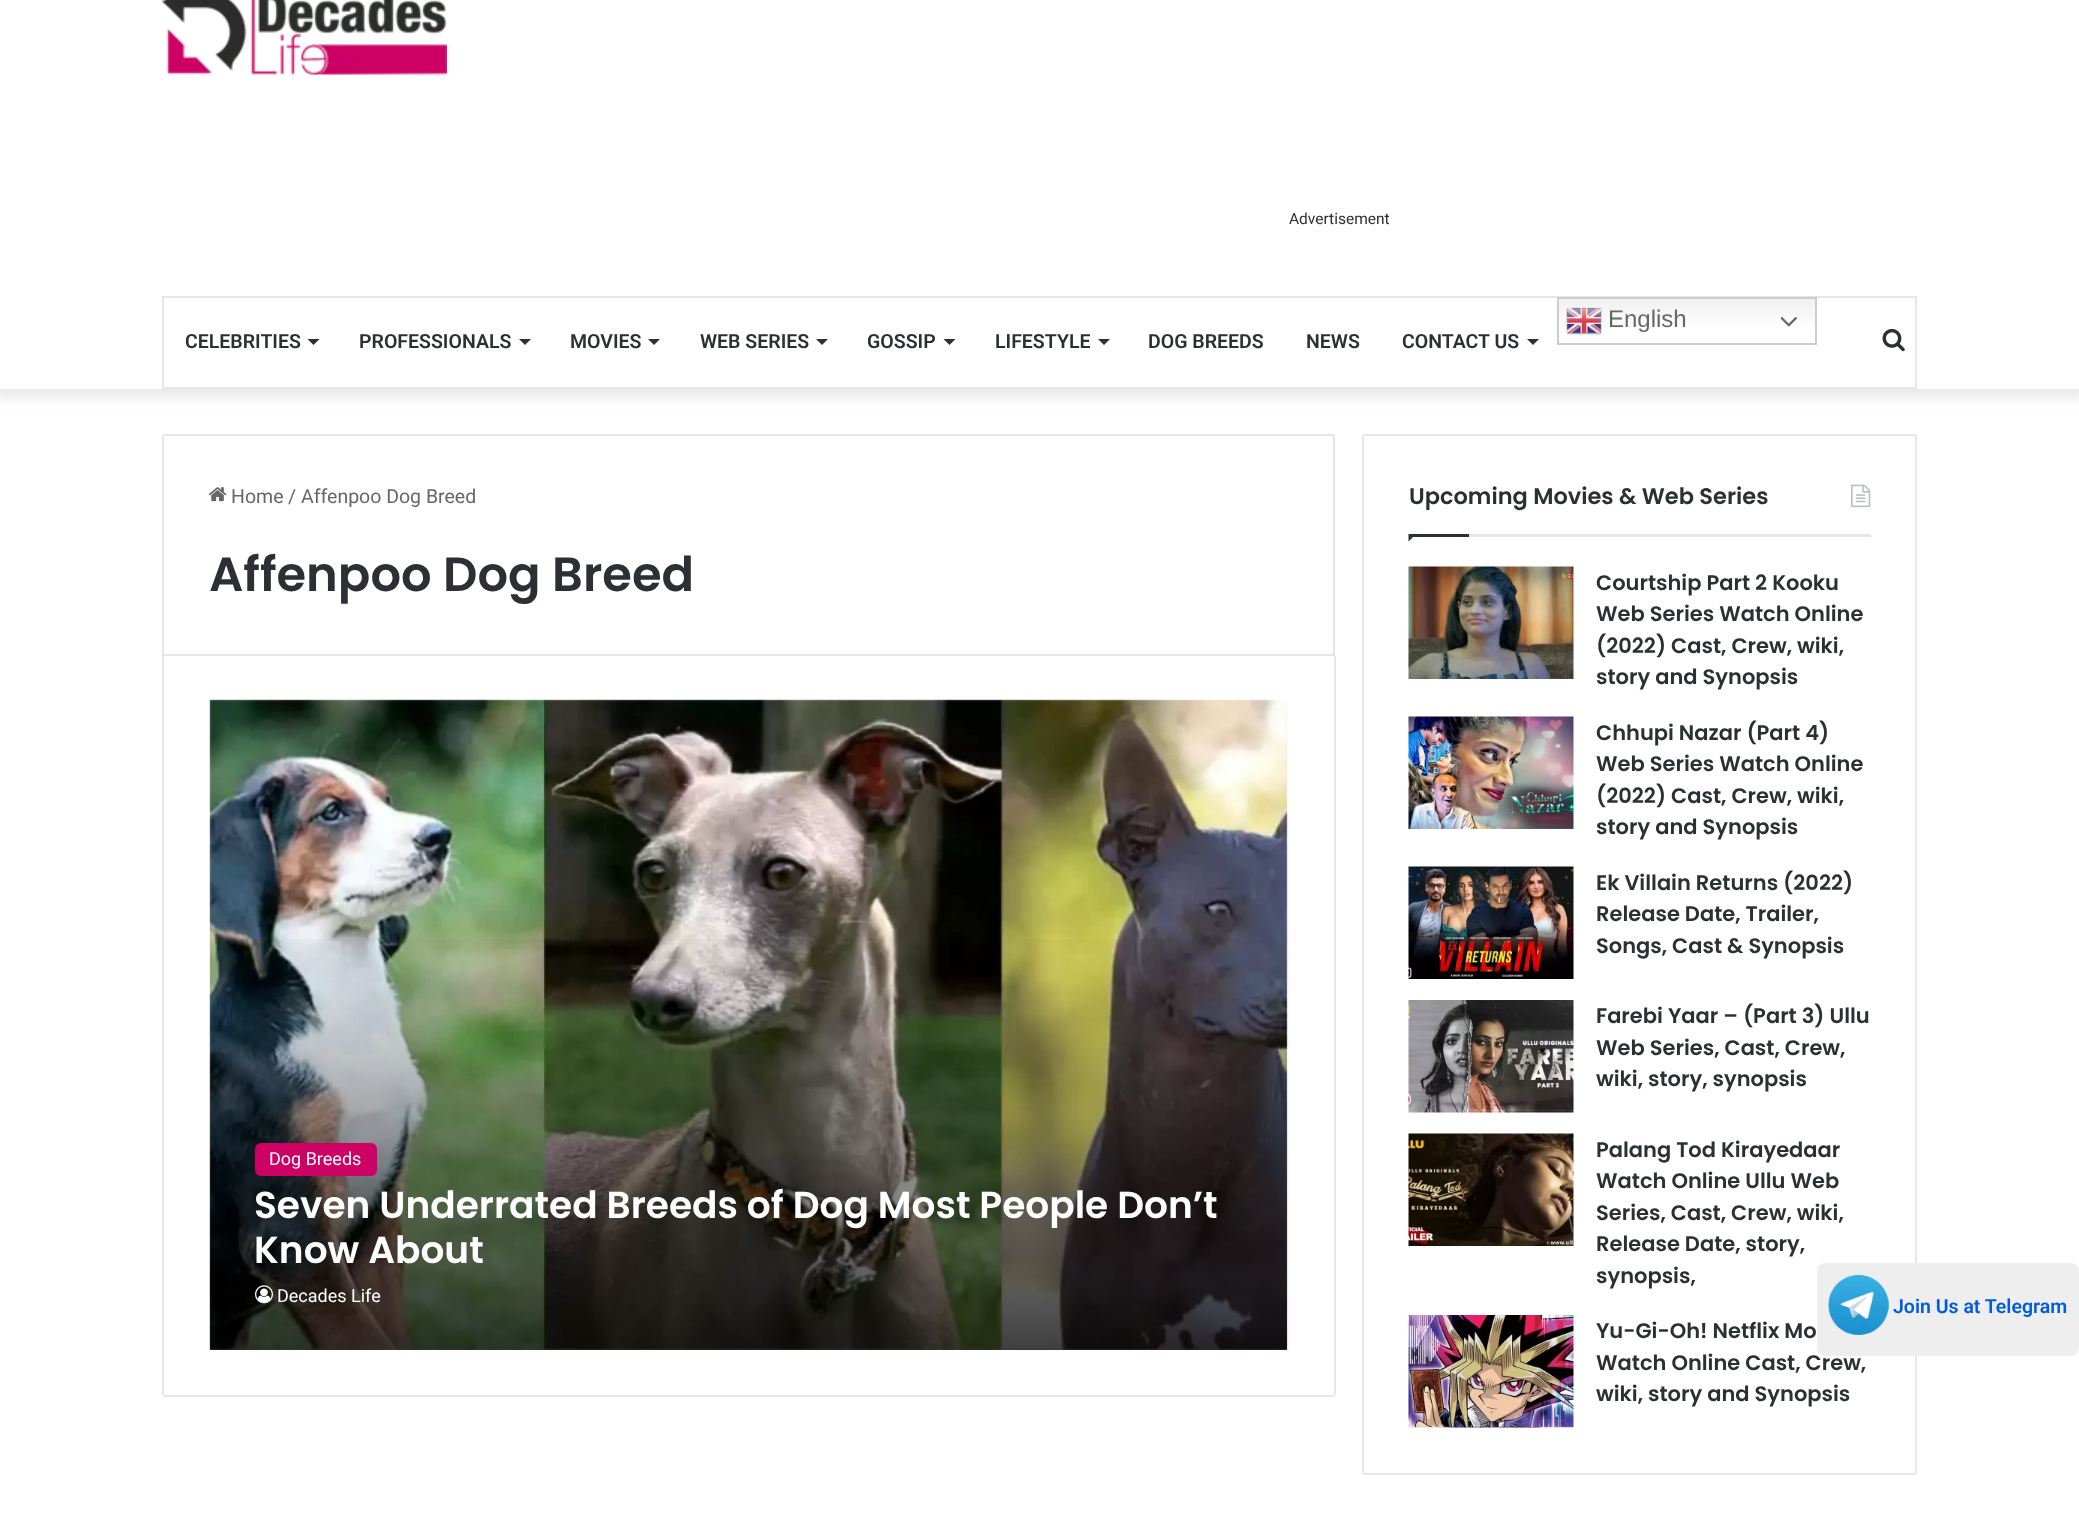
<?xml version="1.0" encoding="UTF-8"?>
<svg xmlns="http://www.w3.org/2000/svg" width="2079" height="1532">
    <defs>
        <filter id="blur1" x="-50%" y="-200%" width="200%" height="500%"><feGaussianBlur stdDeviation="7.5"/></filter>
        <linearGradient id="g1" gradientUnits="userSpaceOnUse" x1="1687" y1="297" x2="1687" y2="345"><stop offset="0" stop-color="#EFEFEF"/><stop offset="0.7" stop-color="#FFFFFF"/></linearGradient>
        <linearGradient id="g2" gradientUnits="userSpaceOnUse" x1="749" y1="927" x2="749" y2="1350"><stop offset="0" stop-color="#000000" stop-opacity="0"/><stop offset="1" stop-color="#000000" stop-opacity="0.75"/></linearGradient>
    </defs>
    <rect width="100%" height="100%" fill="#FFFFFF"/>
    <rect x="-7" y="-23" width="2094" height="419" fill="#000000" fill-opacity="0.1" filter="url(#blur1)"/>
    <rect x="0" y="0" width="2079" height="389" fill="#FFFFFF"/>
    <image x="162" y="0" width="285" height="75" href="img_01.png"/>
    <text x="1289" y="224" font-family="Roboto" font-size="15.5" fill="#2C2F34">Advertisement</text>
    <rect x="163" y="297" width="1753" height="91" fill="none" stroke="#E6E6E6" stroke-width="2"/>
    <rect x="1559" y="299" width="256" height="26" fill="url(#g1)"/>
    <rect x="1558" y="298" width="258" height="46" fill="none" stroke="#CCCCCC" stroke-width="2"/>
    <image x="1566" y="307" width="36" height="28" href="img_02.png"/>
    <text x="1608" y="327" font-family="Liberation Sans" font-size="24" fill="#666666">English</text>
    <image x="1781" y="317" width="16" height="10" href="img_03.png"/>
    <text x="185" y="348" font-family="Roboto" font-size="19.5" font-weight="600" fill="#2C2F34">CELEBRITIES</text>
    <path d="M 307.5 339 H 319.5 L 313.5 345 Z" fill="#2C2F34"/>
    <text x="359" y="348" font-family="Roboto" font-size="19.5" font-weight="600" fill="#2C2F34">PROFESSIONALS</text>
    <path d="M 519 339 H 531 L 525 345 Z" fill="#2C2F34"/>
    <text x="570" y="348" font-family="Roboto" font-size="19.5" font-weight="600" fill="#2C2F34">MOVIES</text>
    <path d="M 648 339 H 660 L 654 345 Z" fill="#2C2F34"/>
    <text x="700" y="348" font-family="Roboto" font-size="19.5" font-weight="600" fill="#2C2F34">WEB SERIES</text>
    <path d="M 816 339 H 828 L 822 345 Z" fill="#2C2F34"/>
    <text x="867" y="348" font-family="Roboto" font-size="19.5" font-weight="600" fill="#2C2F34">GOSSIP</text>
    <path d="M 943.5 339 H 955.5 L 949.5 345 Z" fill="#2C2F34"/>
    <text x="995" y="348" font-family="Roboto" font-size="19.5" font-weight="600" fill="#2C2F34">LIFESTYLE</text>
    <path d="M 1098 339 H 1110 L 1104 345 Z" fill="#2C2F34"/>
    <text x="1148" y="348" font-family="Roboto" font-size="19.5" font-weight="600" fill="#2C2F34">DOG BREEDS</text>
    <text x="1306" y="348" font-family="Roboto" font-size="19.5" font-weight="600" fill="#2C2F34">NEWS</text>
    <text x="1402" y="348" font-family="Roboto" font-size="19.5" font-weight="600" fill="#2C2F34">CONTACT US</text>
    <path d="M 1527 339 H 1539 L 1533 345 Z" fill="#2C2F34"/>
    <image x="1882" y="328" width="23" height="24" href="img_04.png"/>
    <path d="M 165 435 H 1332 C 1333 435 1334 436 1334 437 V 655 H 163 V 437 C 163 436 164 435 165 435 Z" fill="none" stroke="#E6E6E6" stroke-width="2"/>
    <image x="208" y="487" width="19" height="15" href="img_05.png"/>
    <text x="231" y="503" font-family="Roboto" font-size="19.5" fill="#666666">Home</text>
    <text x="288" y="503" font-family="Roboto" font-size="19.5" fill="#666666">/</text>
    <text x="301" y="503" font-family="Roboto" font-size="19.5" fill="#666666">Affenpoo Dog Breed</text>
    <text x="209" y="591" font-family="Poppins" font-size="48" font-weight="600" fill="#2C2F34">Affenpoo Dog Breed</text>
    <rect x="1334" y="656" width="2" height="739" fill="#E6E6E6"/>
    <rect x="164" y="1395" width="1170" height="2" fill="#E6E6E6"/>
    <rect x="162" y="656" width="2" height="739" fill="#E6E6E6"/>
    <rect x="210" y="701" width="1077" height="649" fill="#CDCDCD"/>
    <image x="209" y="699" width="1080" height="651" href="img_06.png"/>
    <rect x="210" y="939" width="1077" height="411" fill="url(#g2)"/>
    <rect x="255" y="1143" width="122" height="33" rx="6" fill="#CD0064"/>
    <text x="269" y="1165" font-family="Roboto" font-size="18" fill="#FFFFFF">Dog Breeds</text>
    <text font-family="Poppins" font-size="37.5" font-weight="600" fill="#FFFFFF">
        <tspan x="254" y="1218">Seven Underrated Breeds of Dog Most People Don’t</tspan>
        <tspan x="254" y="1263">Know About</tspan>
    </text>
    <image x="255" y="1285" width="18" height="19" href="img_07.png"/>
    <text x="277" y="1302" font-family="Roboto" font-size="18" fill="#FFFFFF">Decades Life</text>
    <rect x="1363" y="435" width="553" height="1039" rx="2" fill="none" stroke="#E6E6E6" stroke-width="2"/>
    <rect x="1469" y="534" width="402" height="3" fill="#E6E6E6"/>
    <text x="1409" y="504" font-family="Poppins" font-size="22.5" font-weight="600" fill="#2C2F34">Upcoming Movies &amp; Web Series</text>
    <image x="1851" y="484" width="20" height="24" href="img_08.png"/>
    <path d="M 1408.5 534 H 1416 L 1408.5 541.5 Z" fill="#2C2F34"/>
    <rect x="1409" y="534" width="60" height="3" fill="#2C2F34"/>
    <image x="1408" y="566" width="166" height="113" href="img_09.png"/>
    <text font-family="Poppins" font-size="21" font-weight="600" fill="#2C2F34">
        <tspan x="1596" y="590">Courtship Part 2 Kooku</tspan>
        <tspan x="1596" y="621">Web Series Watch Online</tspan>
        <tspan x="1596" y="653">(2022) Cast, Crew, wiki,</tspan>
        <tspan x="1596" y="684">story and Synopsis</tspan>
    </text>
    <image x="1408" y="716" width="166" height="113" href="img_10.png"/>
    <text font-family="Poppins" font-size="21" font-weight="600" fill="#2C2F34">
        <tspan x="1596" y="740">Chhupi Nazar (Part 4)</tspan>
        <tspan x="1596" y="771">Web Series Watch Online</tspan>
        <tspan x="1596" y="803">(2022) Cast, Crew, wiki,</tspan>
        <tspan x="1596" y="834">story and Synopsis</tspan>
    </text>
    <image x="1408" y="866" width="166" height="113" href="img_11.png"/>
    <text font-family="Poppins" font-size="21" font-weight="600" fill="#2C2F34">
        <tspan x="1596" y="890">Ek Villain Returns (2022)</tspan>
        <tspan x="1596" y="921">Release Date, Trailer,</tspan>
        <tspan x="1596" y="953">Songs, Cast &amp; Synopsis</tspan>
    </text>
    <image x="1408" y="1000" width="166" height="113" href="img_12.png"/>
    <text font-family="Poppins" font-size="21" font-weight="600" fill="#2C2F34">
        <tspan x="1596" y="1023">Farebi Yaar – (Part 3) Ullu</tspan>
        <tspan x="1596" y="1055">Web Series, Cast, Crew,</tspan>
        <tspan x="1596" y="1086">wiki, story, synopsis</tspan>
    </text>
    <image x="1408" y="1133" width="166" height="113" href="img_13.png"/>
    <text font-family="Poppins" font-size="21" font-weight="600" fill="#2C2F34">
        <tspan x="1596" y="1157">Palang Tod Kirayedaar</tspan>
        <tspan x="1596" y="1188">Watch Online Ullu Web</tspan>
        <tspan x="1596" y="1220">Series, Cast, Crew, wiki,</tspan>
        <tspan x="1596" y="1251">Release Date, story,</tspan>
        <tspan x="1596" y="1283">synopsis,</tspan>
    </text>
    <image x="1408" y="1315" width="166" height="113" href="img_14.png"/>
    <text font-family="Poppins" font-size="21" font-weight="600" fill="#2C2F34">
        <tspan x="1596" y="1338">Yu-Gi-Oh! Netflix Mo</tspan>
        <tspan x="1596" y="1370">Watch Online Cast, Crew,</tspan>
        <tspan x="1596" y="1401">wiki, story and Synopsis</tspan>
    </text>
    <rect x="1817" y="1263" width="262" height="93" rx="8" fill="#EEEEEE"/>
    <image x="1828" y="1275" width="61" height="60" href="img_15.png"/>
    <text x="1893" y="1313" font-family="Roboto" font-size="19.5" font-weight="600" fill="#005BE2">Join Us at Telegram</text>
</svg>
